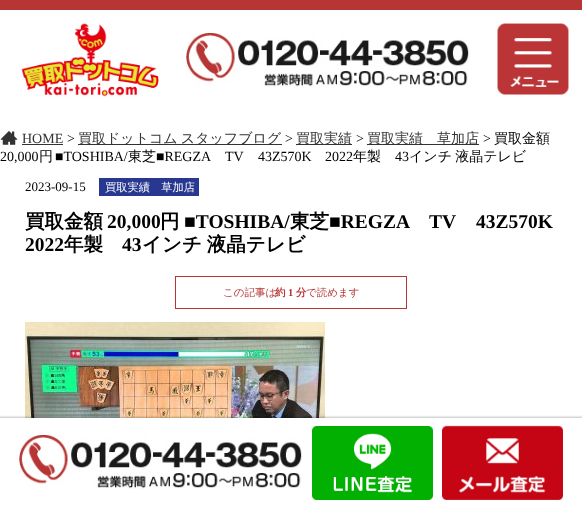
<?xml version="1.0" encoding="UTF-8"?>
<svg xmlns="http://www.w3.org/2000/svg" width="582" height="508">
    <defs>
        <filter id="blur1" x="-50%" y="-200%" width="200%" height="500%"><feGaussianBlur stdDeviation="1"/></filter>
    </defs>
    <rect width="100%" height="100%" fill="#FFFFFF"/>
    <rect x="0" y="0" width="582" height="10" fill="#B73535"/>
    <image x="21" y="22" width="138" height="76" href="img_01.png"/>
    <image x="186" y="33" width="283" height="54" href="img_02.png"/>
    <image x="497" y="23" width="72" height="72" href="img_03.png"/>
    <image x="0" y="131" width="18" height="14" href="img_04.png"/>
    <text x="22" y="143" font-family="Liberation Serif" font-size="14" fill="#333333">HOME</text>
    <rect x="22" y="144" width="41" height="1" fill="#333333"/>
    <text x="67" y="143" font-family="Liberation Serif" font-size="14" fill="#000000">&gt;</text>
    <rect x="78" y="144" width="204" height="1" fill="#333333"/>
    <text x="78" y="143" word-spacing="-1" font-family="WenQuanYi Zen Hei" font-size="14" font-weight="500" fill="#333333">買取ドットコム スタッフブログ</text>
    <text x="285" y="143" font-family="Liberation Serif" font-size="14" fill="#000000">&gt;</text>
    <rect x="296" y="144" width="56" height="1" fill="#333333"/>
    <text x="296" y="143" font-family="WenQuanYi Zen Hei" font-size="14" font-weight="500" fill="#333333">買取実績</text>
    <text x="356" y="143" font-family="Liberation Serif" font-size="14" fill="#000000">&gt;</text>
    <rect x="367" y="144" width="112" height="1" fill="#333333"/>
    <text x="367" y="143" font-family="WenQuanYi Zen Hei" font-size="14" font-weight="500" fill="#333333">買取実績　草加店</text>
    <text x="483" y="143" font-family="Liberation Serif" font-size="14" fill="#000000">&gt;</text>
    <text x="494" y="143" font-family="WenQuanYi Zen Hei" font-size="14" font-weight="500" fill="#000000">買取金額</text>
    <text x="0" y="161" font-family="Liberation Serif" font-size="14" fill="#000000">20,000</text>
    <text x="39" y="161" font-family="WenQuanYi Zen Hei" font-size="14" font-weight="500" fill="#000000">円</text>
    <text x="55" y="161" font-family="Liberation Serif" font-size="14" fill="#000000">■TOSHIBA/</text>
    <text x="128" y="161" font-family="WenQuanYi Zen Hei" font-size="14" font-weight="500" fill="#000000">東芝</text>
    <text x="156" y="161" font-family="Liberation Serif" font-size="14" fill="#000000">■REGZA</text>
    <text x="225" y="161" font-family="Liberation Serif" font-size="14" fill="#000000">TV</text>
    <text x="258" y="161" font-family="Liberation Serif" font-size="14" fill="#000000">43Z570K</text>
    <text x="325" y="161" font-family="Liberation Serif" font-size="14" fill="#000000">2022</text>
    <text x="353" y="161" font-family="WenQuanYi Zen Hei" font-size="14" font-weight="500" fill="#000000">年製</text>
    <text x="395" y="161" font-family="Liberation Serif" font-size="14" fill="#000000">43</text>
    <text x="409" y="161" word-spacing="-1" font-family="WenQuanYi Zen Hei" font-size="14" font-weight="500" fill="#000000">インチ 液晶テレビ</text>
    <text x="25" y="191" font-family="Liberation Serif" font-size="13" fill="#000000">2023-09-15</text>
    <rect x="99" y="178" width="100" height="18" fill="#283890"/>
    <text x="105" y="191" font-family="WenQuanYi Zen Hei" font-size="11.25" font-weight="500" fill="#FFFFFF">買取実績　草加店</text>
    <text x="25" y="228" font-family="WenQuanYi Zen Hei" font-size="19.5" font-weight="700" fill="#000000">買取金額</text>
    <text x="107" y="228" font-family="Liberation Serif" font-size="19.5" font-weight="700" fill="#000000">20,000</text>
    <text x="160" y="228" font-family="WenQuanYi Zen Hei" font-size="19.5" font-weight="700" fill="#000000">円</text>
    <text x="184" y="228" font-family="Liberation Serif" font-size="19.5" font-weight="700" fill="#000000">■TOSHIBA/</text>
    <text x="290" y="228" font-family="WenQuanYi Zen Hei" font-size="19.5" font-weight="700" fill="#000000">東芝</text>
    <text x="329" y="228" font-family="Liberation Serif" font-size="19.5" font-weight="700" fill="#000000">■REGZA</text>
    <text x="429" y="228" font-family="Liberation Serif" font-size="19.5" font-weight="700" fill="#000000">TV</text>
    <text x="476" y="228" font-family="Liberation Serif" font-size="19.5" font-weight="700" fill="#000000">43Z570K</text>
    <text x="25" y="251" font-family="Liberation Serif" font-size="19.5" font-weight="700" fill="#000000">2022</text>
    <text x="64" y="251" font-family="WenQuanYi Zen Hei" font-size="19.5" font-weight="700" fill="#000000">年製</text>
    <text x="122" y="251" font-family="Liberation Serif" font-size="19.5" font-weight="700" fill="#000000">43</text>
    <text x="142" y="251" word-spacing="-1" font-family="WenQuanYi Zen Hei" font-size="19.5" font-weight="700" fill="#000000">インチ 液晶テレビ</text>
    <rect x="175.5" y="276.5" width="231" height="32" fill="none" stroke="#B73535"/>
    <text x="223" y="296" font-family="WenQuanYi Zen Hei" font-size="10.5" font-weight="500" fill="#B73535">この記事は</text>
    <text x="275" y="296" font-family="WenQuanYi Zen Hei" font-size="10.5" font-weight="700" fill="#B73535">約</text>
    <text x="288" y="296" font-family="Liberation Serif" font-size="10.5" font-weight="700" fill="#B73535">1</text>
    <text x="296" y="296" font-family="WenQuanYi Zen Hei" font-size="10.5" font-weight="700" fill="#B73535">分</text>
    <text x="306" y="296" font-family="WenQuanYi Zen Hei" font-size="10.5" font-weight="500" fill="#B73535">で読めます</text>
    <image x="25" y="322" width="300" height="96" href="img_05.png"/>
    <rect x="-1" y="417" width="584" height="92" fill="#000000" fill-opacity="0.25" filter="url(#blur1)"/>
    <rect x="0" y="418" width="582" height="90" fill="#FFFFFF"/>
    <image x="19" y="435" width="283" height="54" href="img_06.png"/>
    <image x="312" y="426" width="121" height="74" href="img_07.png"/>
    <image x="442" y="425" width="121" height="75" href="img_08.png"/>
</svg>
